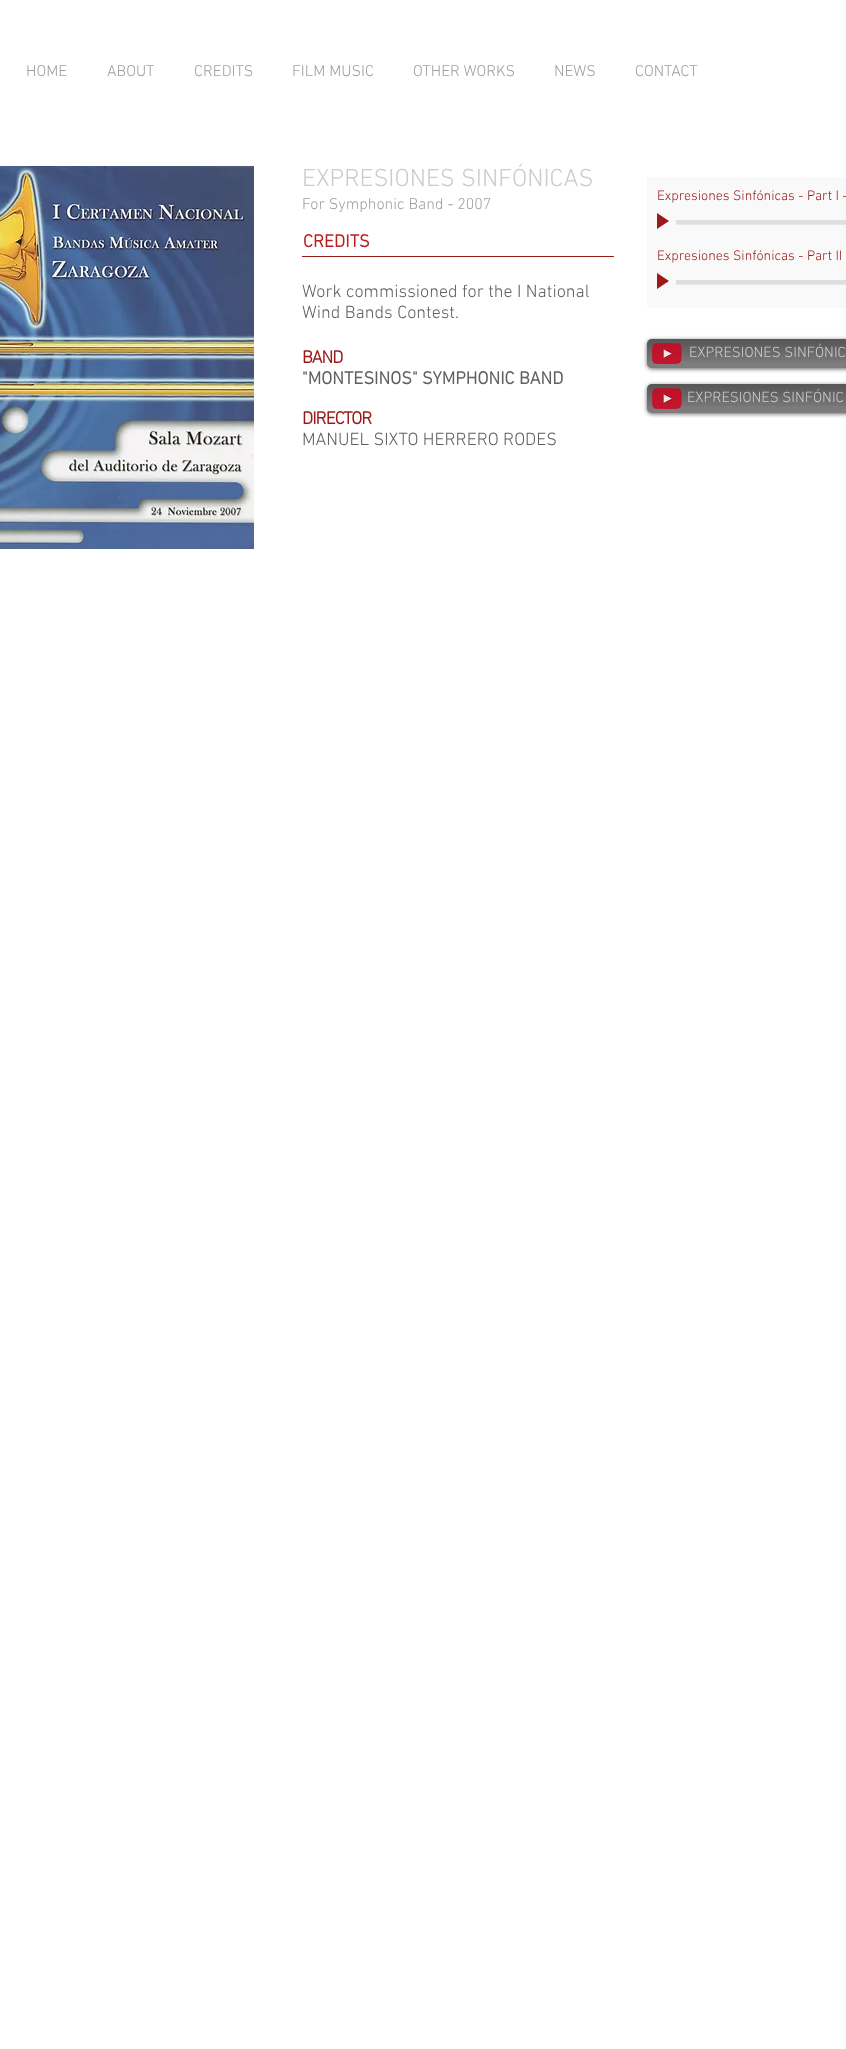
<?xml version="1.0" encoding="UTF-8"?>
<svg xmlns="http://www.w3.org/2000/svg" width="846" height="2049">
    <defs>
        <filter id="blur1" x="-50%" y="-200%" width="200%" height="500%"><feGaussianBlur stdDeviation="2"/></filter>
    </defs>
    <rect width="100%" height="100%" fill="#FFFFFF"/>
    <text x="26" y="76" font-family="'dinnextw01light'" font-size="16" font-weight="300" fill="#A0A09F">HOME</text>
    <text x="107" y="76" font-family="'dinnextw01light'" font-size="16" font-weight="300" fill="#A0A09F">ABOUT</text>
    <text x="194" y="76" font-family="'dinnextw01light'" font-size="16" font-weight="300" fill="#A0A09F">CREDITS</text>
    <text x="292" y="76" font-family="'dinnextw01light'" font-size="16" font-weight="300" fill="#A0A09F">FILM MUSIC</text>
    <text x="413" y="76" font-family="'dinnextw01light'" font-size="16" font-weight="300" fill="#A0A09F">OTHER WORKS</text>
    <text x="554" y="76" font-family="'dinnextw01light'" font-size="16" font-weight="300" fill="#A0A09F">NEWS</text>
    <text x="635" y="76" font-family="'dinnextw01light'" font-size="16" font-weight="300" fill="#A0A09F">CONTACT</text>
    <image x="0" y="166" width="254" height="383" href="img_01.png"/>
    <text x="302" y="186" font-family="'dinnextw01light'" font-size="25" font-weight="300" fill="#CCCCCC">EXPRESIONES SINFÓNICAS</text>
    <text x="302" y="209" font-family="'dinnextw01light'" font-size="16" font-weight="300" fill="#A0A09F">For Symphonic Band - 2007</text>
    <rect x="647" y="177" width="199" height="131" fill="#F9F9F9"/>
    <text x="657" y="200" font-family="'dinnextw01light'" font-size="14" font-weight="300" fill="#9B1919">Expresiones Sinfónicas - Part I -</text>
    <path d="M 657 229 V 213 L 669 221 Z" fill="#9B1919"/>
    <rect x="676" y="220" width="170" height="4" fill="#DEDEDE"/>
    <rect x="676" y="224" width="170" height="1" fill="#E7E7E7"/>
    <text x="657" y="260" font-family="'dinnextw01light'" font-size="14" font-weight="300" fill="#9B1919">Expresiones Sinfónicas - Part II</text>
    <path d="M 657 289 V 273 L 669 281 Z" fill="#9B1919"/>
    <rect x="676" y="280" width="170" height="4" fill="#DEDEDE"/>
    <rect x="676" y="284" width="170" height="1" fill="#E7E7E7"/>
    <text x="303" y="247" font-family="'dinnextw01light'" font-size="18" font-weight="700" fill="#B82020">CREDITS</text>
    <rect x="302" y="256" width="312" height="1" fill="#9B1919"/>
    <text font-family="'dinnextw01light'" font-size="18" font-weight="300" fill="#605E5E">
        <tspan x="302" y="297">Work commissioned for the I National</tspan>
        <tspan x="302" y="318">Wind Bands Contest.</tspan>
    </text>
    <text x="302" y="363" font-family="'dinnextw01light'" font-size="18" font-weight="700" letter-spacing="-1" fill="#9B1919">BAND</text>
    <text x="302" y="384" font-family="'dinnextw01light'" font-size="18" font-weight="700" fill="#605E5E">"MONTESINOS" SYMPHONIC BAND</text>
    <rect x="647" y="340" width="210" height="29" rx="5" fill="#000000" fill-opacity="0.6" filter="url(#blur1)"/>
    <rect x="647" y="339" width="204" height="29" rx="5" fill="#605E5E"/>
    <image x="647" y="339" width="199" height="22" href="img_03.png"/>
    <image x="647" y="339" width="199" height="29" href="img_04.png"/>
    <image x="652" y="343" width="30" height="21" href="img_02.png"/>
    <text x="689" y="357" font-family="'dinnextw01light'" font-size="15" font-weight="300" fill="#CCCCCC">EXPRESIONES SINFÓNIC</text>
    <rect x="647" y="385" width="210" height="29" rx="5" fill="#000000" fill-opacity="0.6" filter="url(#blur1)"/>
    <rect x="647" y="384" width="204" height="29" rx="5" fill="#605E5E"/>
    <image x="647" y="384" width="199" height="22" href="img_03.png"/>
    <image x="647" y="384" width="199" height="29" href="img_04.png"/>
    <image x="652" y="388" width="30" height="21" href="img_02.png"/>
    <text x="687" y="402" font-family="'dinnextw01light'" font-size="15" font-weight="300" fill="#CCCCCC">EXPRESIONES SINFÓNIC</text>
    <text x="302" y="424" font-family="'dinnextw01light'" font-size="18" font-weight="700" letter-spacing="-1" fill="#9B1919">DIRECTOR</text>
    <text x="302" y="445" font-family="'dinnextw01light'" font-size="18" font-weight="300" fill="#605E5E">MANUEL SIXTO HERRERO RODES</text>
</svg>
